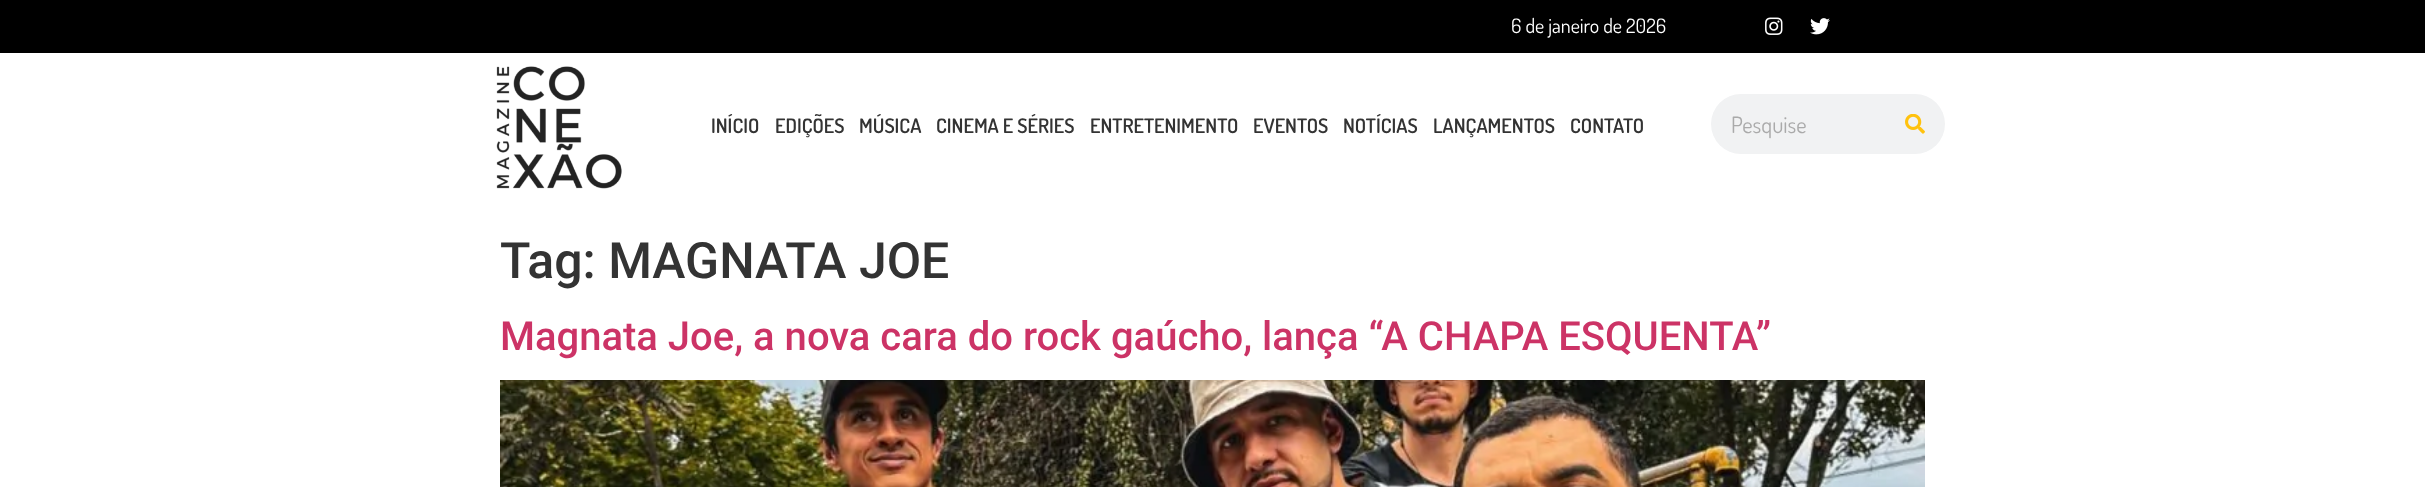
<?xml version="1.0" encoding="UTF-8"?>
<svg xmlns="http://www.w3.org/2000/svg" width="2425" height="487">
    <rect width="100%" height="100%" fill="#FFFFFF"/>
    <rect x="0" y="0" width="2425" height="53" fill="#000000"/>
    <text x="1511" y="33" font-family="Dosis" font-size="20" fill="#FFFFFF">6 de janeiro de 2026</text>
    <image x="1765" y="17" width="18" height="18" href="img_01.png"/>
    <image x="1810" y="18" width="20" height="17" href="img_02.png"/>
    <image x="496" y="66" width="126" height="123" href="img_03.png"/>
    <text x="711" y="133" font-family="Dosis" font-size="20" font-weight="600" fill="#333333">INÍCIO</text>
    <text x="775" y="133" font-family="Dosis" font-size="20" font-weight="600" fill="#333333">EDIÇÕES</text>
    <text x="859" y="133" font-family="Dosis" font-size="20" font-weight="600" fill="#333333">MÚSICA</text>
    <text x="936" y="133" font-family="Dosis" font-size="20" font-weight="600" fill="#333333">CINEMA E SÉRIES</text>
    <text x="1090" y="133" font-family="Dosis" font-size="20" font-weight="600" fill="#333333">ENTRETENIMENTO</text>
    <text x="1253" y="133" font-family="Dosis" font-size="20" font-weight="600" fill="#333333">EVENTOS</text>
    <text x="1343" y="133" font-family="Dosis" font-size="20" font-weight="600" fill="#333333">NOTÍCIAS</text>
    <text x="1433" y="133" font-family="Dosis" font-size="20" font-weight="600" fill="#333333">LANÇAMENTOS</text>
    <text x="1570" y="133" font-family="Dosis" font-size="20" font-weight="600" fill="#333333">CONTATO</text>
    <rect x="1711" y="94" width="234" height="60" rx="30" fill="#F1F2F3"/>
    <text x="1731" y="133" font-family="Dosis" font-size="22.5" fill="#AAAAAA">Pesquise</text>
    <image x="1905" y="114" width="20" height="20" href="img_04.png"/>
    <text x="500" y="278" font-family="Roboto" font-size="50" font-weight="500" fill="#333333">Tag: MAGNATA JOE</text>
    <text x="500" y="350" font-family="Roboto" font-size="40" font-weight="500" fill="#CC3366">Magnata Joe, a nova cara do rock gaúcho, lança “A CHAPA ESQUENTA”</text>
    <image x="500" y="380" width="1425" height="107" href="img_05.png"/>
</svg>
